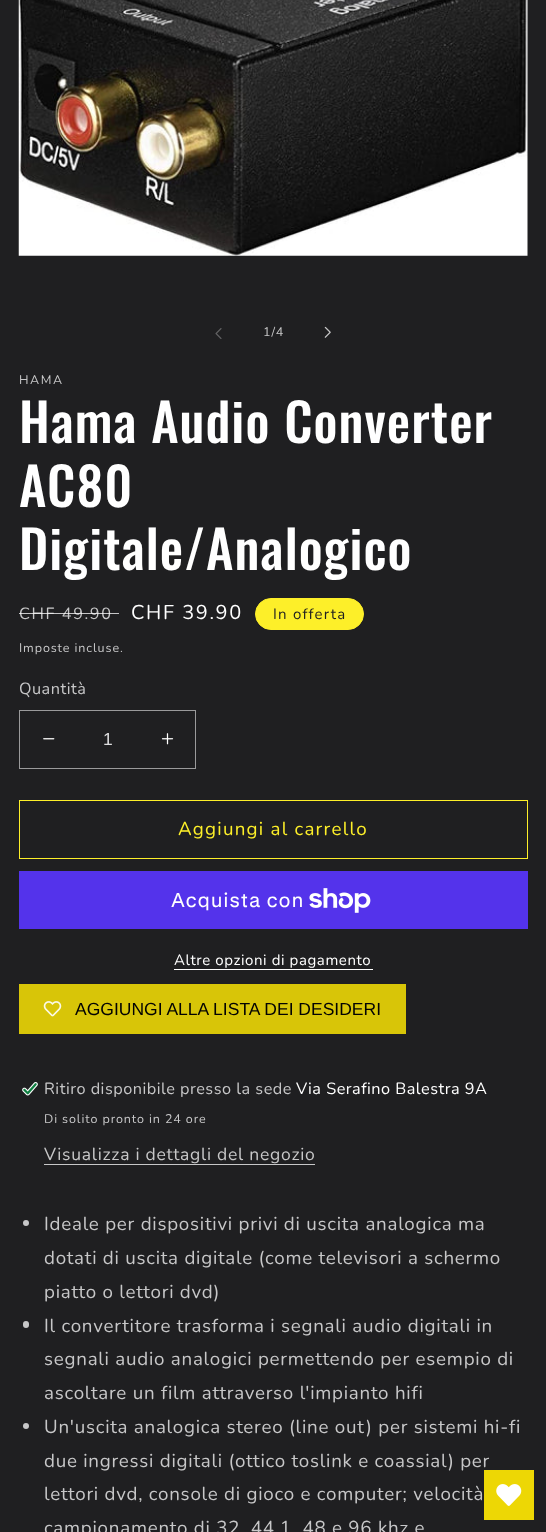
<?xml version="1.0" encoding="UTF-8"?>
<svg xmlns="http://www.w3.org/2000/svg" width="546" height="1532">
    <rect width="100%" height="100%" fill="#1F1F21"/>
    <image x="18" y="0" width="510" height="256" href="img_01.png"/>
    <image x="215" y="328" width="7" height="11" href="img_02.png"/>
    <text x="263" y="336" font-family="Nunito" font-size="12.5" letter-spacing="0.9" fill="#C7C7C8">1/4</text>
    <image x="324" y="326" width="7" height="12" href="img_03.png"/>
    <text x="19" y="384" font-family="Nunito" font-size="12.5" letter-spacing="1.6" fill="#C7C7C8">HAMA</text>
    <text font-family="Oswald" font-size="52.5" font-weight="500" letter-spacing="1.05" fill="#FFFFFF">
        <tspan x="19" y="443">Hama Audio Converter</tspan>
        <tspan x="19" y="507">AC80</tspan>
        <tspan x="19" y="570">Digitale/Analogico</tspan>
    </text>
    <text x="19" y="619" font-family="Nunito" font-size="16.25" letter-spacing="1.6" fill="#C7C7C8">CHF 49.90</text>
    <rect x="19" y="613" width="100" height="1" fill="#FFFFFF" fill-opacity="0.75"/>
    <text x="131" y="619" font-family="Nunito" font-size="20" letter-spacing="1.6" fill="#FFFFFF">CHF 39.90</text>
    <rect x="255.5" y="598.5" width="108" height="31" rx="15.5" fill="#FDEF29" stroke="#FDEF29"/>
    <text x="273" y="619" font-family="Nunito" font-size="15" letter-spacing="1.25" fill="#1F1F21">In offerta</text>
    <text x="19" y="652" font-family="Nunito" font-size="12.5" letter-spacing="0.9" fill="#C7C7C8">Imposte incluse.</text>
    <text x="19" y="694" font-family="Nunito" font-size="16.25" letter-spacing="0.5" fill="#C7C7C8">Quantità</text>
    <image x="43" y="738" width="12" height="2" href="img_04.png"/>
    <image x="161" y="733" width="13" height="12" href="img_05.png"/>
    <rect x="19.5" y="710.5" width="176" height="58" fill="none" stroke="#9A9A9B"/>
    <text x="103" y="745" font-family="Liberation Sans" font-size="17.5" fill="#DDDDDE">1</text>
    <rect x="19.5" y="800.5" width="508" height="58" fill="none" stroke="#FDEF29"/>
    <text x="178" y="835" font-family="Nunito" font-size="18.75" letter-spacing="1.25" fill="#FDEF29">Aggiungi al carrello</text>
    <rect x="19" y="871" width="509" height="58" fill="#5433EB"/>
    <text x="171" y="907" font-family="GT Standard" font-size="20" letter-spacing="0.75" fill="#FFFFFF">Acquista con</text>
    <image x="309" y="888" width="62" height="25" href="img_06.png"/>
    <text x="174" y="965" font-family="Nunito" font-size="15" letter-spacing="0.6" fill="#FFFFFF">Altre opzioni di pagamento</text>
    <rect x="174" y="969" width="199" height="1" fill="#FFFFFF"/>
    <rect x="19" y="984" width="387" height="50" fill="#D8C508"/>
    <image x="43" y="1001" width="19" height="16" href="img_07.png"/>
    <text x="75" y="1015" font-family="Liberation Sans" font-size="17.5" fill="#030303">AGGIUNGI ALLA LISTA DEI DESIDERI</text>
    <image x="22" y="1082" width="16" height="14" href="img_08.png"/>
    <text x="44" y="1094" font-family="Nunito" font-size="16.25" letter-spacing="0.5" fill="#C7C7C8">Ritiro disponibile presso la sede</text>
    <text x="296" y="1094" font-family="Nunito" font-size="16.25" letter-spacing="0.5" fill="#FFFFFF">Via Serafino Balestra 9A</text>
    <text x="44" y="1123" font-family="Nunito" font-size="12.5" letter-spacing="0.9" fill="#C7C7C8">Di solito pronto in 24 ore</text>
    <text x="44" y="1160" font-family="Nunito" font-size="17.5" letter-spacing="0.75" fill="#C7C7C8">Visualizza i dettagli del negozio</text>
    <rect x="44" y="1164" width="271" height="1" fill="#C7C7C8"/>
    <circle cx="26" cy="1223" r="3" fill="#C7C7C8"/>
    <text font-family="Nunito" font-size="18.75" letter-spacing="0.75" fill="#C7C7C8">
        <tspan x="44" y="1230">Ideale per dispositivi privi di uscita analogica ma</tspan>
        <tspan x="44" y="1264">dotati di uscita digitale (come televisori a schermo</tspan>
        <tspan x="44" y="1298">piatto o lettori dvd)</tspan>
    </text>
    <rect x="23" y="1321" width="6" height="7" rx="3" fill="#C7C7C8"/>
    <text font-family="Nunito" font-size="18.75" letter-spacing="0.75" fill="#C7C7C8">
        <tspan x="44" y="1332">Il convertitore trasforma i segnali audio digitali in</tspan>
        <tspan x="44" y="1365">segnali audio analogici permettendo per esempio di</tspan>
        <tspan x="44" y="1399">ascoltare un film attraverso l'impianto hifi</tspan>
    </text>
    <circle cx="26" cy="1426" r="3" fill="#C7C7C8"/>
    <text font-family="Nunito" font-size="18.75" letter-spacing="0.75" fill="#C7C7C8">
        <tspan x="44" y="1433">Un'uscita analogica stereo (line out) per sistemi hi-fi</tspan>
        <tspan x="44" y="1467">due ingressi digitali (ottico toslink e coassial) per</tspan>
        <tspan x="44" y="1500">lettori dvd, console di gioco e computer; velocità</tspan>
        <tspan x="44" y="1534">campionamento di 32, 44,1, 48 e 96 khz e</tspan>
    </text>
    <rect x="484" y="1470" width="50" height="50" fill="#EDD705"/>
    <image x="496" y="1484" width="26" height="22" href="img_09.png"/>
</svg>
